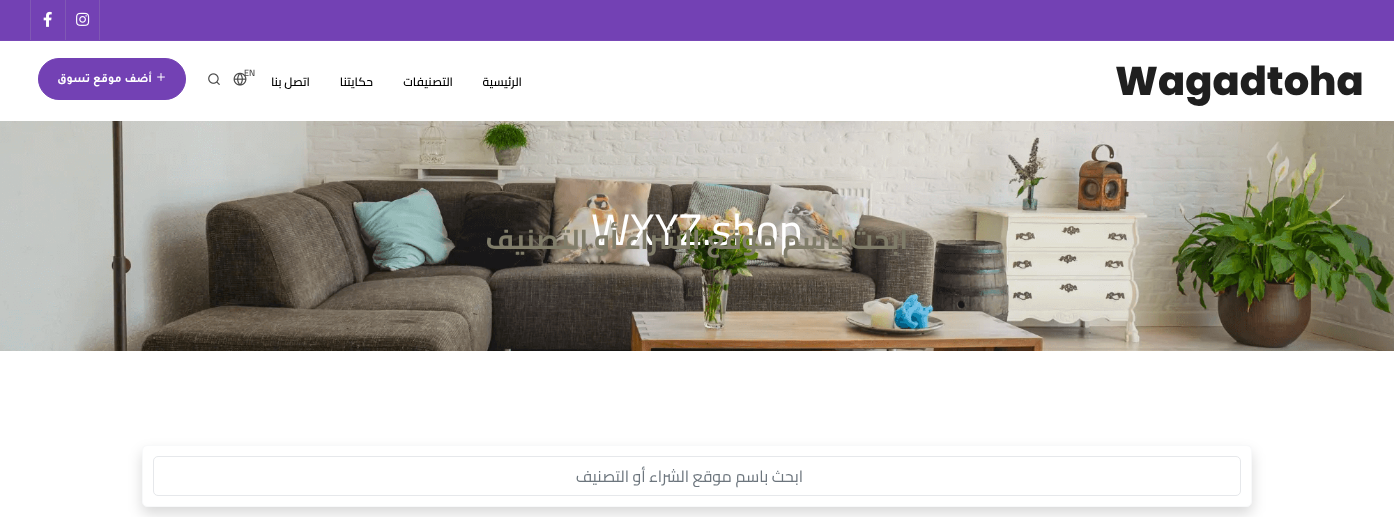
<?xml version="1.0" encoding="UTF-8"?>
<svg xmlns="http://www.w3.org/2000/svg" width="1394" height="517">
    <defs>
        <filter id="blur1" x="-50%" y="-200%" width="200%" height="500%"><feGaussianBlur stdDeviation="7"/></filter>
    </defs>
    <rect width="100%" height="100%" fill="#FFFFFF"/>
    <rect x="0" y="0" width="1394" height="40" fill="#7341B4"/>
    <rect x="0" y="40" width="1394" height="1" fill="#7949B7"/>
    <rect x="99" y="0" width="1" height="40" fill="#8058B4"/>
    <rect x="65" y="0" width="1" height="40" fill="#8058B4"/>
    <image x="76" y="12" width="14" height="14" href="img_01.png"/>
    <rect x="30" y="0" width="1" height="40" fill="#8058B4"/>
    <image x="43" y="11" width="9" height="16" href="img_02.png"/>
    <text x="1115" y="95" font-family="Poppins" font-size="40" font-weight="800" fill="#1F1F1F">Wagadtoha</text>
    <text x="522" y="86" font-family="Cairo" font-size="12" font-weight="600" direction="rtl" fill="#000000">الرئيسية</text>
    <text x="453" y="86" font-family="Cairo" font-size="12" font-weight="600" direction="rtl" fill="#000000">التصنيفات</text>
    <text x="373" y="86" font-family="Cairo" font-size="12" font-weight="600" direction="rtl" fill="#000000">حكايتنا</text>
    <text x="310" y="86" font-family="Cairo" font-size="12" font-weight="600" direction="rtl" fill="#000000">اتصل بنا</text>
    <image x="233" y="72" width="14" height="14" href="img_03.png"/>
    <text x="244" y="76" font-family="Cairo" font-size="9" font-weight="600" fill="#484848">EN</text>
    <image x="208" y="73" width="12" height="12" href="img_04.png"/>
    <rect x="38.5" y="58.5" width="147" height="41" rx="20.5" fill="#7341B4" stroke="#7341B4"/>
    <image x="157" y="73" width="8" height="8" href="img_05.png"/>
    <text x="152" y="82" font-family="Tajawal" font-size="12" font-weight="700" direction="rtl" fill="#FFFFFF">أضف موقع تسوق</text>
    <image x="0" y="121" width="1394" height="230" href="img_06.png"/>
    <text x="591" y="245" font-family="Cairo" font-size="44" fill="#FFFFFF">WXYZ.shop</text>
    <text x="908" y="249" font-family="Cairo" font-size="27.25" font-weight="700" direction="rtl" fill="#7F7C69">ابحث باسم موقع الشراء أو التصنيف</text>
    <text x="687" y="296" font-family="Cairo" font-size="11" fill="#534F3F">Enter</text>
    <rect x="142" y="452" width="1110" height="62" rx="5" fill="#000000" fill-opacity="0.15" filter="url(#blur1)"/>
    <rect x="142.5" y="445.5" width="1109" height="61" rx="4.5" fill="#FFFFFF" stroke="#F8F9FA"/>
    <rect x="153.5" y="456.5" width="1087" height="39" rx="4.5" fill="none" stroke="#E6E8EB"/>
    <text x="803" y="482" font-family="Cairo" font-size="16" direction="rtl" fill="#6C757D">ابحث باسم موقع الشراء أو التصنيف</text>
</svg>
